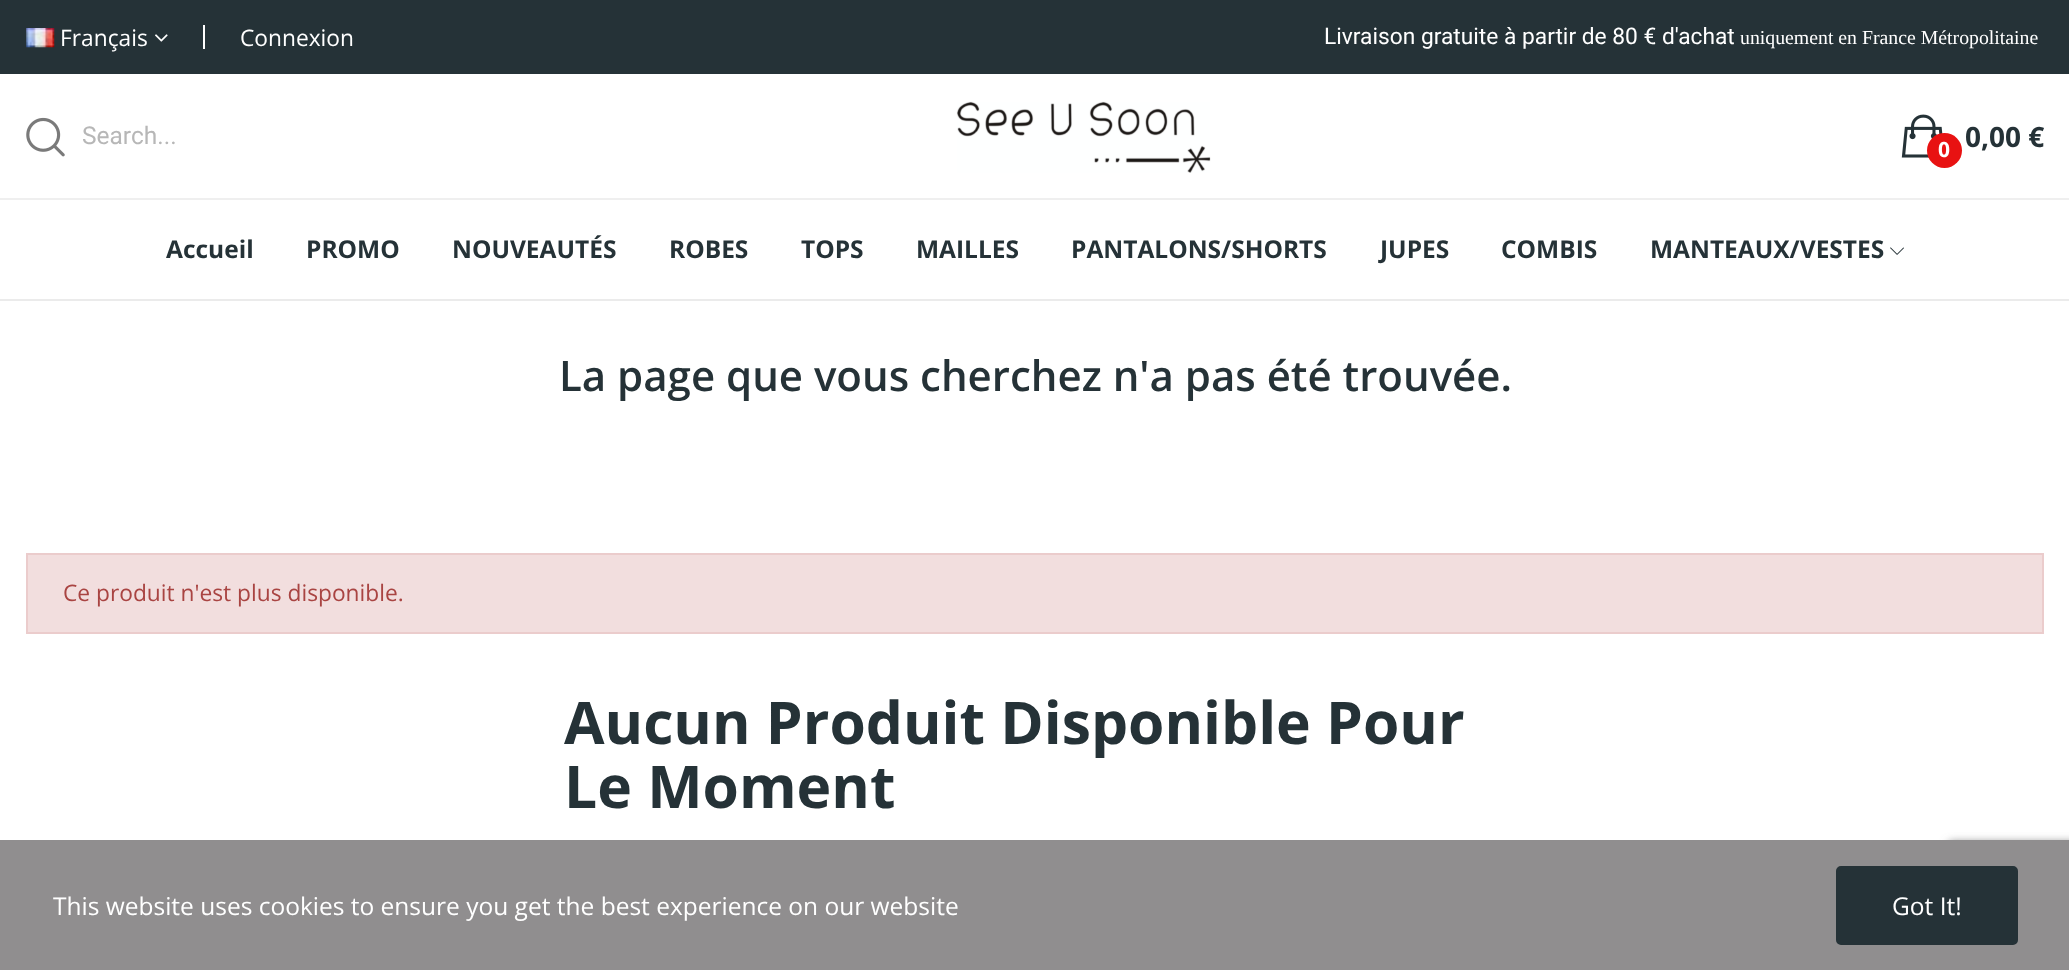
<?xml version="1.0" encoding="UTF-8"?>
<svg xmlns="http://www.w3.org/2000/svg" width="2069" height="970">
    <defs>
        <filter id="blur1" x="-50%" y="-200%" width="200%" height="500%"><feGaussianBlur stdDeviation="4.5"/></filter>
    </defs>
    <rect width="100%" height="100%" fill="#FFFFFF"/>
    <rect x="0" y="299" width="2069" height="2" fill="#EBEBEB"/>
    <rect x="0" y="0" width="2069" height="74" fill="#253237"/>
    <rect x="203" y="25" width="2" height="24" fill="#FFFFFF"/>
    <image x="26" y="28" width="29" height="20" href="img_01.png"/>
    <text x="60" y="46" font-family="Open Sans" font-size="22.75" fill="#FFFFFF">Français</text>
    <image x="155" y="34" width="13" height="8" href="img_02.png"/>
    <text x="240" y="46" font-family="Open Sans" font-size="22.75" fill="#FFFFFF">Connexion</text>
    <text x="1324" y="44" font-family="Roboto" font-size="22.75" fill="#FFFFFF">Livraison gratuite à partir de 80 € d'achat</text>
    <text x="1740" y="44" font-family="Liberation Serif" font-size="19.8" fill="#FFFFFF">uniquement en France Métropolitaine</text>
    <image x="26" y="117" width="39" height="40" href="img_03.png"/>
    <text x="82" y="144" font-family="Roboto" font-size="24.5" fill="#B7B7B7">Search...</text>
    <image x="956" y="101" width="255" height="72" href="img_04.png"/>
    <image x="1901" y="114" width="42" height="44" href="img_05.png"/>
    <circle cx="1944.5" cy="150.5" r="17.5" fill="#E81212"/>
    <text x="1938" y="157" font-family="Open Sans" font-size="21" font-weight="700" fill="#FFFFFF">0</text>
    <text x="1965" y="147" font-family="Open Sans" font-size="28" font-weight="700" fill="#253237">0,00 €</text>
    <rect x="0" y="198" width="2069" height="2" fill="#EFEFEF"/>
    <text x="166" y="258" font-family="Open Sans" font-size="24.5" font-weight="700" fill="#253237">Accueil</text>
    <text x="306" y="258" font-family="Open Sans" font-size="24.5" font-weight="700" fill="#253237">PROMO</text>
    <text x="452" y="258" font-family="Open Sans" font-size="24.5" font-weight="700" fill="#253237">NOUVEAUTÉS</text>
    <text x="669" y="258" font-family="Open Sans" font-size="24.5" font-weight="700" fill="#253237">ROBES</text>
    <text x="801" y="258" font-family="Open Sans" font-size="24.5" font-weight="700" fill="#253237">TOPS</text>
    <text x="916" y="258" font-family="Open Sans" font-size="24.5" font-weight="700" fill="#253237">MAILLES</text>
    <text x="1071" y="258" font-family="Open Sans" font-size="24.5" font-weight="700" fill="#253237">PANTALONS/SHORTS</text>
    <text x="1380" y="258" font-family="Open Sans" font-size="24.5" font-weight="700" fill="#253237">JUPES</text>
    <text x="1501" y="258" font-family="Open Sans" font-size="24.5" font-weight="700" fill="#253237">COMBIS</text>
    <text x="1650" y="258" font-family="Open Sans" font-size="24.5" font-weight="700" fill="#253237">MANTEAUX/VESTES</text>
    <image x="1890" y="247" width="14" height="8" href="img_06.png"/>
    <text x="559" y="391" font-family="Open Sans" font-size="42" font-weight="600" fill="#253237">La page que vous cherchez n'a pas été trouvée.</text>
    <rect x="27" y="554" width="2016" height="79" fill="#F2DEDE" stroke="#EBCCCC" stroke-width="2"/>
    <text x="63" y="601" font-family="Open Sans" font-size="22.75" fill="#A94442">Ce produit n'est plus disponible.</text>
    <text font-family="Open Sans" font-size="58.75" font-weight="700" fill="#253237">
        <tspan x="564" y="744">Aucun Produit Disponible Pour</tspan>
        <tspan x="564" y="808">Le Moment</tspan>
    </text>
    <rect x="1948" y="842" width="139" height="105" rx="4" fill="#808080" filter="url(#blur1)"/>
    <rect x="0" y="840" width="2069" height="130" fill="#908E8F"/>
    <text x="53" y="915" font-family="Open Sans" font-size="24.5" fill="#FFFFFF">This website uses cookies to ensure you get the best experience on our website</text>
    <rect x="1838" y="868" width="178" height="75" rx="3" fill="#253237" stroke="#253237" stroke-width="4"/>
    <text x="1892" y="915" font-family="Open Sans" font-size="24.5" fill="#FFFFFF">Got It!</text>
</svg>
